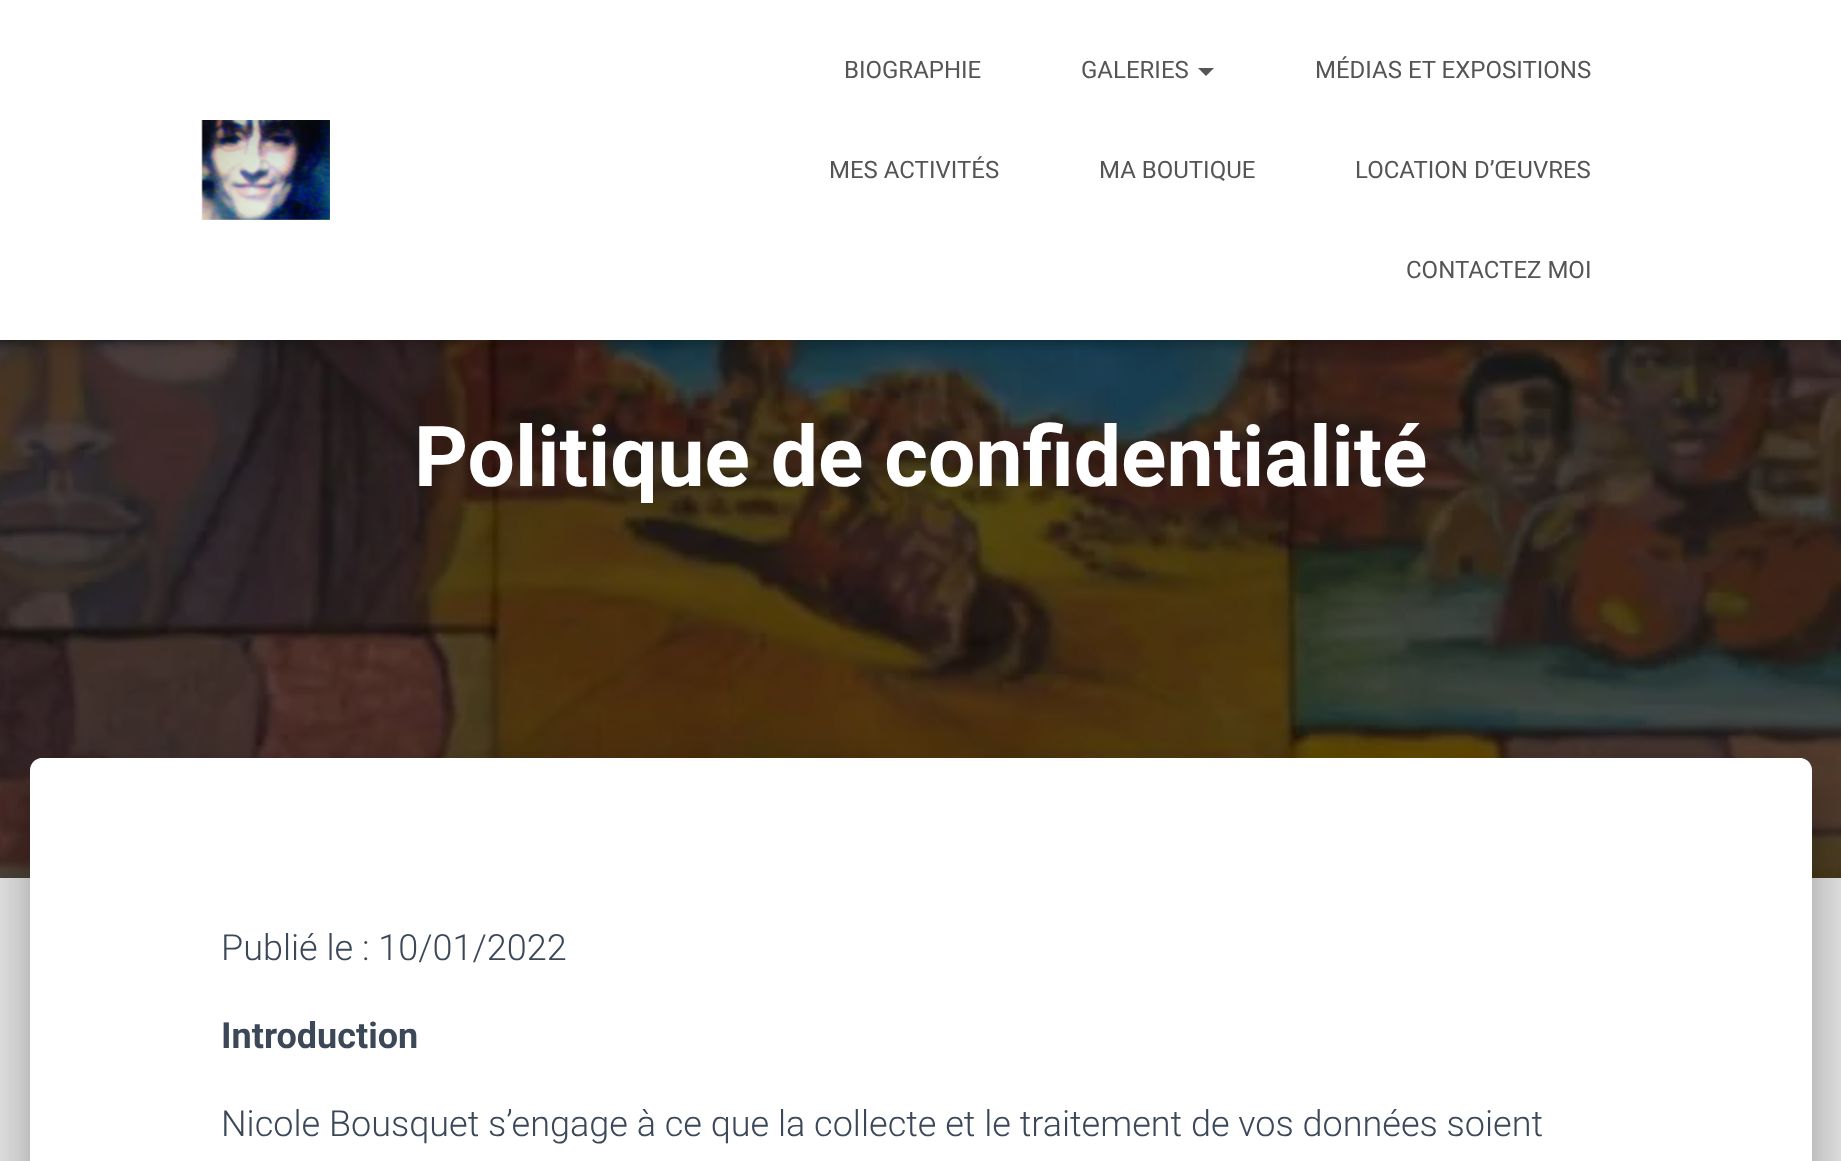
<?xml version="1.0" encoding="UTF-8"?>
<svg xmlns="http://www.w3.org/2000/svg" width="1841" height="1161">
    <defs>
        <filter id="blur1" x="-50%" y="-200%" width="200%" height="500%"><feGaussianBlur stdDeviation="5"/></filter>
        <filter id="blur2" x="-50%" y="-200%" width="200%" height="500%"><feGaussianBlur stdDeviation="10"/></filter>
        <filter id="blur3" x="-50%" y="-200%" width="200%" height="500%"><feGaussianBlur stdDeviation="30"/></filter>
        <filter id="blur4" x="-50%" y="-200%" width="200%" height="500%"><feGaussianBlur stdDeviation="24"/></filter>
    </defs>
    <rect width="100%" height="100%" fill="#E5E5E5"/>
    <image x="0" y="340" width="1841" height="538" href="img_02.png"/>
    <rect x="4" y="12" width="1834" height="332" fill="#000000" fill-opacity="0.1" filter="url(#blur1)"/>
    <rect x="0" y="2" width="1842" height="340" fill="#000000" fill-opacity="0.12" filter="url(#blur2)"/>
    <rect x="12" y="14" width="1818" height="316" fill="#000000" fill-opacity="0.42" filter="url(#blur2)"/>
    <rect x="0" y="0" width="1841" height="340" fill="#FFFFFF"/>
    <image x="201" y="120" width="129" height="100" href="img_01.png"/>
    <text x="844" y="78" font-family="Roboto" font-size="24" fill="#555555">BIOGRAPHIE</text>
    <text x="1081" y="78" font-family="Roboto" font-size="24" fill="#555555">GALERIES</text>
    <path d="M 1198 68 H 1214 L 1206 76 Z" fill="#555555"/>
    <text x="1315" y="78" font-family="Roboto" font-size="24" fill="#555555">MÉDIAS ET EXPOSITIONS</text>
    <text x="829" y="178" font-family="Roboto" font-size="24" fill="#555555">MES ACTIVITÉS</text>
    <text x="1099" y="178" font-family="Roboto" font-size="24" fill="#555555">MA BOUTIQUE</text>
    <text x="1355" y="178" font-family="Roboto" font-size="24" fill="#555555">LOCATION D’ŒUVRES</text>
    <text x="1406" y="278" font-family="Roboto" font-size="24" fill="#555555">CONTACTEZ MOI</text>
    <text x="414" y="486" font-family="Roboto" font-size="84" font-weight="700" fill="#FFFFFF">Politique de confidentialité</text>
    <rect x="40" y="784" width="1762" height="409" rx="2" fill="#000000" fill-opacity="0.2" filter="url(#blur2)"/>
    <rect x="20" y="760" width="1802" height="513" rx="22" fill="#000000" fill-opacity="0.12" filter="url(#blur3)"/>
    <rect x="26" y="786" width="1790" height="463" rx="16" fill="#000000" fill-opacity="0.14" filter="url(#blur4)"/>
    <path d="M 42 758 H 1800 C 1806.5 758 1812 763.5 1812 770 V 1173 H 30 V 770 C 30 763.5 35.5 758 42 758 Z" fill="#FFFFFF"/>
    <text x="221" y="960" font-family="Roboto" font-size="36" font-weight="300" fill="#3C4858">Publié le : 10/01/2022</text>
    <text x="221" y="1048" font-family="Roboto" font-size="36" font-weight="700" fill="#3C4858">Introduction</text>
    <text x="221" y="1136" font-family="Roboto" font-size="36" font-weight="300" fill="#3C4858">Nicole Bousquet s’engage à ce que la collecte et le traitement de vos données soient</text>
</svg>
